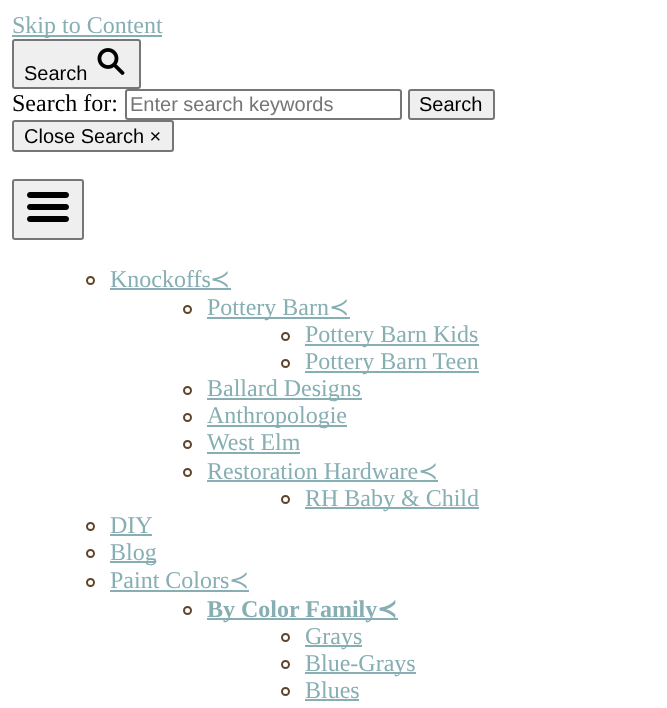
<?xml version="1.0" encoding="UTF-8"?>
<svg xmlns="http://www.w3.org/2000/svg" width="667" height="708">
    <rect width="100%" height="100%" fill="#FFFFFF"/>
    <rect x="12" y="35" width="150" height="2" fill="#86AEB3"/>
    <text x="12" y="33" font-family="Liberation Serif" font-size="24" fill="#86AEB3">Skip to Content</text>
    <rect x="13" y="40" width="127" height="48" rx="2" fill="#EFEFEF" stroke="#767676" stroke-width="2"/>
    <text x="24" y="80" font-family="Liberation Sans" font-size="20" fill="#000000">Search</text>
    <image x="97" y="48" width="28" height="27" href="img_01.png"/>
    <text x="12" y="111" font-family="Liberation Serif" font-size="24" fill="#000000">Search for:</text>
    <rect x="126" y="90" width="275" height="29" rx="2" fill="none" stroke="#767676" stroke-width="2"/>
    <text x="130" y="111" font-family="Liberation Sans" font-size="20" fill="#757575">Enter search keywords</text>
    <rect x="409" y="90" width="85" height="29" rx="2" fill="#EFEFEF" stroke="#767676" stroke-width="2"/>
    <text x="419" y="111" font-family="Liberation Sans" font-size="20" fill="#000000">Search</text>
    <rect x="13" y="121" width="160" height="30" rx="2" fill="#EFEFEF" stroke="#767676" stroke-width="2"/>
    <text x="24" y="143" font-family="Liberation Sans" font-size="20" fill="#000000">Close Search ×</text>
    <rect x="13" y="180" width="70" height="59" rx="2" fill="#EFEFEF" stroke="#767676" stroke-width="2"/>
    <image x="27" y="192" width="42" height="30" href="img_02.png"/>
    <circle cx="90.5" cy="280.5" r="3.5" fill="none" stroke="#5F452A" stroke-width="2"/>
    <text x="110" y="287" font-family="Liberation Serif" font-size="24" fill="#86AEB3">Knockoffs</text>
    <text x="210" y="287" font-family="DejaVu Sans" font-size="24" fill="#86AEB3">≺</text>
    <rect x="110" y="288" width="121" height="2" fill="#86AEB3"/>
    <circle cx="187.5" cy="309.5" r="3.5" fill="none" stroke="#5F452A" stroke-width="2"/>
    <rect x="207" y="317" width="143" height="2" fill="#86AEB3"/>
    <text x="207" y="315" font-family="Liberation Serif" font-size="24" fill="#86AEB3">Pottery Barn</text>
    <text x="329" y="315" font-family="DejaVu Sans" font-size="24" fill="#86AEB3">≺</text>
    <circle cx="285.5" cy="336.5" r="3.5" fill="none" stroke="#5F452A" stroke-width="2"/>
    <rect x="305" y="344" width="174" height="2" fill="#86AEB3"/>
    <text x="305" y="342" font-family="Liberation Serif" font-size="24" fill="#86AEB3">Pottery Barn Kids</text>
    <circle cx="285.5" cy="363.5" r="3.5" fill="none" stroke="#5F452A" stroke-width="2"/>
    <rect x="305" y="371" width="174" height="2" fill="#86AEB3"/>
    <text x="305" y="369" font-family="Liberation Serif" font-size="24" fill="#86AEB3">Pottery Barn Teen</text>
    <circle cx="187.5" cy="390.5" r="3.5" fill="none" stroke="#5F452A" stroke-width="2"/>
    <rect x="207" y="398" width="155" height="2" fill="#86AEB3"/>
    <text x="207" y="396" font-family="Liberation Serif" font-size="24" fill="#86AEB3">Ballard Designs</text>
    <circle cx="187.5" cy="417.5" r="3.5" fill="none" stroke="#5F452A" stroke-width="2"/>
    <rect x="207" y="425" width="140" height="2" fill="#86AEB3"/>
    <text x="207" y="423" font-family="Liberation Serif" font-size="24" fill="#86AEB3">Anthropologie</text>
    <circle cx="187.5" cy="444.5" r="3.5" fill="none" stroke="#5F452A" stroke-width="2"/>
    <text x="207" y="450" font-family="Liberation Serif" font-size="24" fill="#86AEB3">West Elm</text>
    <rect x="207" y="452" width="93" height="2" fill="#86AEB3"/>
    <circle cx="187.5" cy="472.5" r="3.5" fill="none" stroke="#5F452A" stroke-width="2"/>
    <text x="207" y="479" font-family="Liberation Serif" font-size="24" fill="#86AEB3">Restoration Hardware</text>
    <text x="418" y="479" font-family="DejaVu Sans" font-size="24" fill="#86AEB3">≺</text>
    <rect x="207" y="480" width="231" height="2" fill="#86AEB3"/>
    <circle cx="285.5" cy="499.5" r="3.5" fill="none" stroke="#5F452A" stroke-width="2"/>
    <rect x="305" y="507" width="174" height="2" fill="#86AEB3"/>
    <text x="305" y="506" font-family="Liberation Serif" font-size="24" fill="#86AEB3">RH Baby &amp; Child</text>
    <circle cx="90.5" cy="526.5" r="3.5" fill="none" stroke="#5F452A" stroke-width="2"/>
    <text x="110" y="533" font-family="Liberation Serif" font-size="24" fill="#86AEB3">DIY</text>
    <rect x="110" y="534" width="42" height="2" fill="#86AEB3"/>
    <circle cx="90.5" cy="553.5" r="3.5" fill="none" stroke="#5F452A" stroke-width="2"/>
    <rect x="110" y="561" width="46" height="2" fill="#86AEB3"/>
    <text x="110" y="560" font-family="Liberation Serif" font-size="24" fill="#86AEB3">Blog</text>
    <circle cx="90.5" cy="582.5" r="3.5" fill="none" stroke="#5F452A" stroke-width="2"/>
    <text x="110" y="588" font-family="Liberation Serif" font-size="24" fill="#86AEB3">Paint Colors</text>
    <text x="229" y="588" font-family="DejaVu Sans" font-size="24" fill="#86AEB3">≺</text>
    <rect x="110" y="590" width="139" height="2" fill="#86AEB3"/>
    <circle cx="187.5" cy="610.5" r="3.5" fill="none" stroke="#5F452A" stroke-width="2"/>
    <rect x="207" y="618" width="191" height="2" fill="#86AEB3"/>
    <text x="207" y="617" font-family="Liberation Serif" font-size="24" font-weight="700" fill="#86AEB3">By Color Family</text>
    <text x="377" y="617" font-family="DejaVu Sans" font-size="24" font-weight="700" fill="#86AEB3">≺</text>
    <circle cx="285.5" cy="637.5" r="3.5" fill="none" stroke="#5F452A" stroke-width="2"/>
    <rect x="305" y="645" width="57" height="2" fill="#86AEB3"/>
    <text x="305" y="644" font-family="Liberation Serif" font-size="24" fill="#86AEB3">Grays</text>
    <circle cx="285.5" cy="664.5" r="3.5" fill="none" stroke="#5F452A" stroke-width="2"/>
    <rect x="305" y="672" width="111" height="2" fill="#86AEB3"/>
    <text x="305" y="671" font-family="Liberation Serif" font-size="24" fill="#86AEB3">Blue-Grays</text>
    <circle cx="285.5" cy="691.5" r="3.5" fill="none" stroke="#5F452A" stroke-width="2"/>
    <text x="305" y="698" font-family="Liberation Serif" font-size="24" fill="#86AEB3">Blues</text>
    <rect x="305" y="699" width="54" height="2" fill="#86AEB3"/>
</svg>
